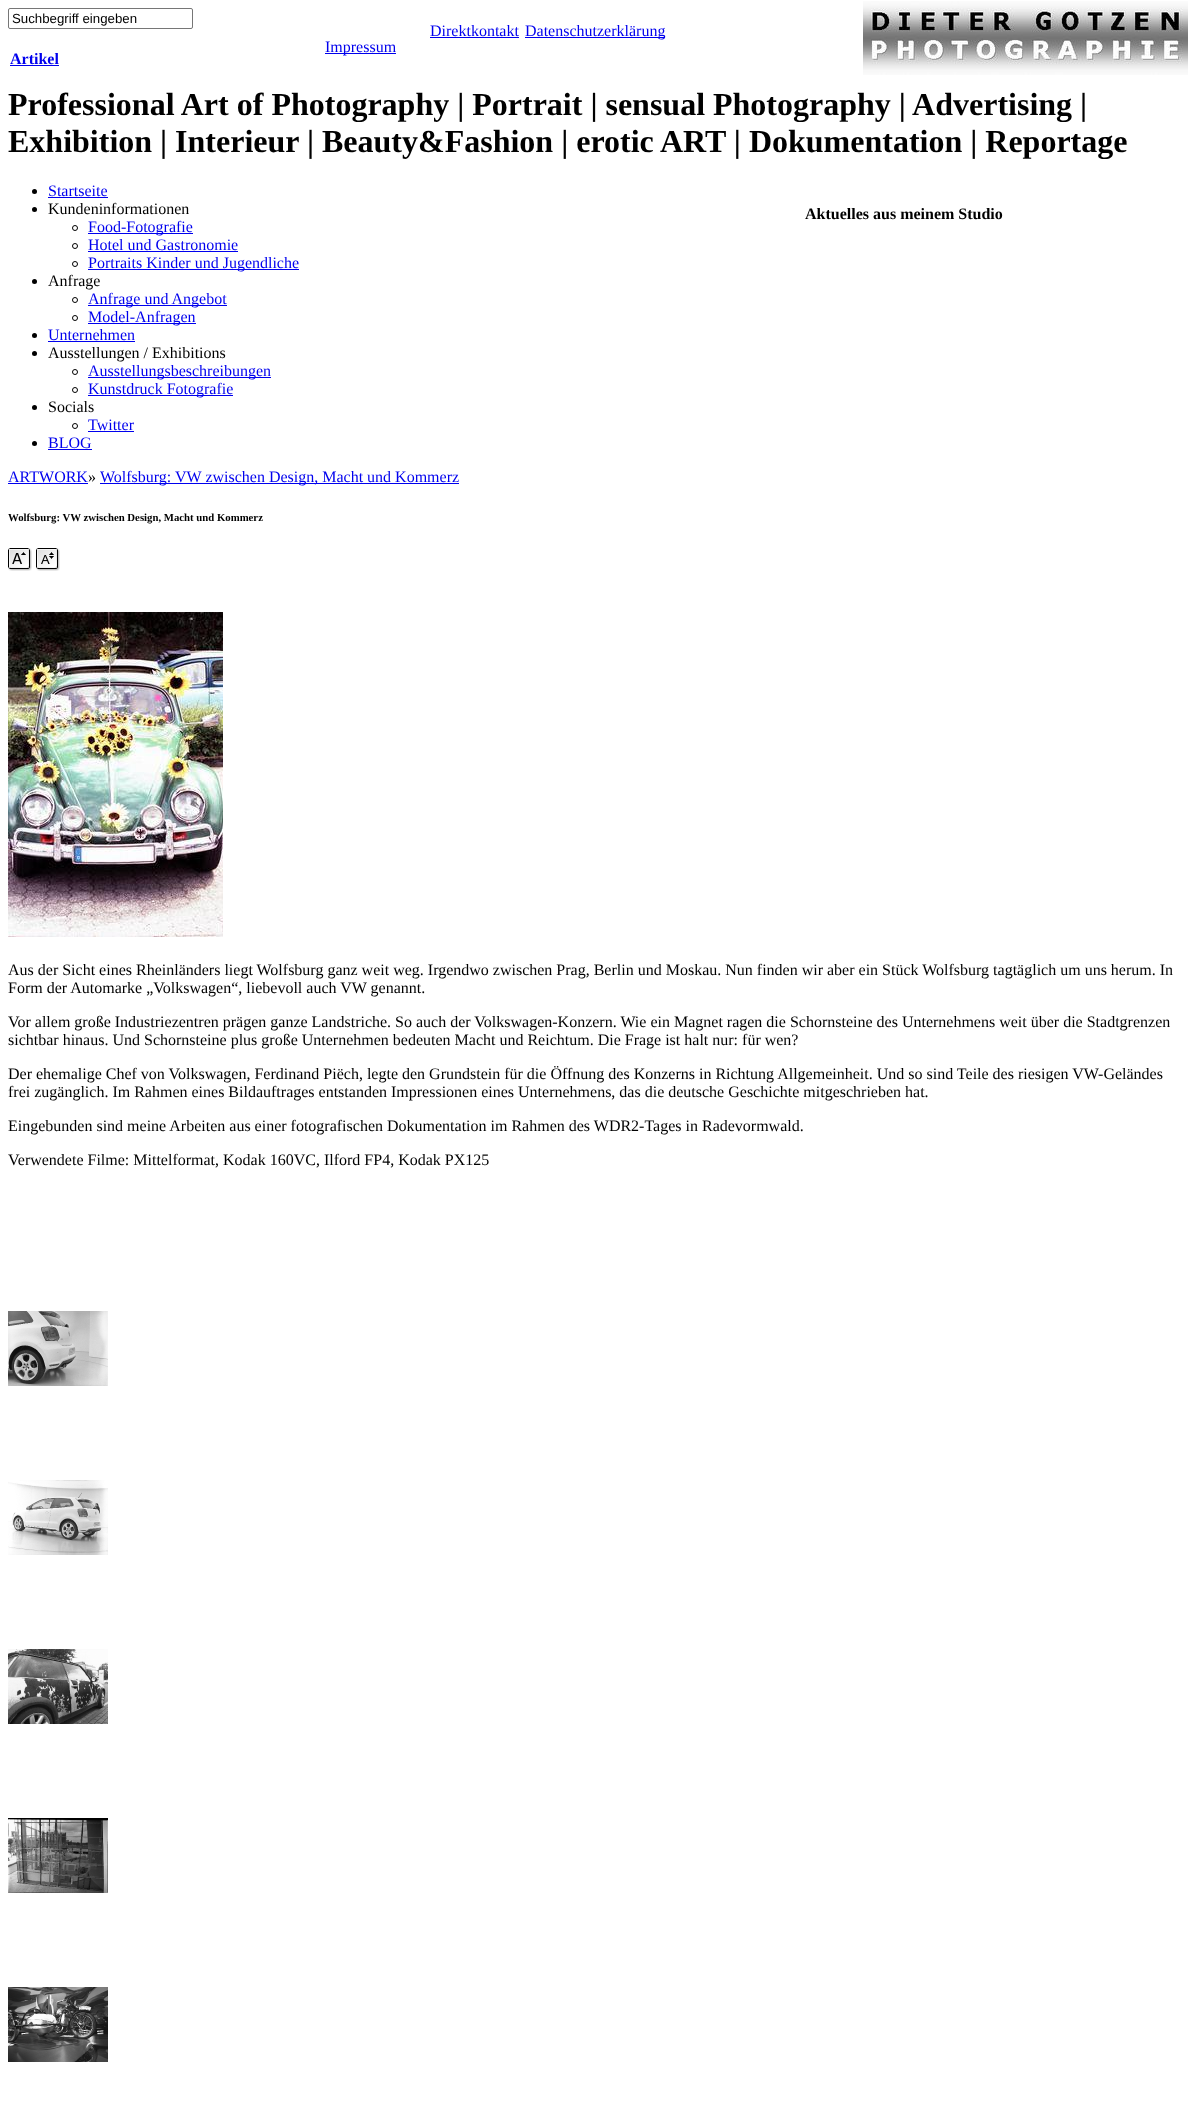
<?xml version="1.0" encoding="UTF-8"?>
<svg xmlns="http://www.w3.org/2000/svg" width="1188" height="2122">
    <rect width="100%" height="100%" fill="#FFFFFF"/>
    <image x="863" y="1" width="325" height="74" href="img_01.png"/>
    <rect x="8.5" y="8.5" width="184" height="20" rx="1.5" fill="none" stroke="#767676"/>
    <text x="12" y="23" font-family="Liberation Sans" font-size="13.25" fill="#000000">Suchbegriff eingeben</text>
    <text x="430" y="36" font-family="Liberation Serif" font-size="16" fill="#0000EE">Direktkontakt</text>
    <rect x="430" y="37" width="89" height="1" fill="#0000EE"/>
    <rect x="525" y="37" width="140" height="1" fill="#0000EE"/>
    <text x="525" y="36" font-family="Liberation Serif" font-size="16" fill="#0000EE">Datenschutzerklärung</text>
    <rect x="325" y="53" width="71" height="1" fill="#0000EE"/>
    <text x="325" y="52" font-family="Liberation Serif" font-size="16" fill="#0000EE">Impressum</text>
    <text x="10" y="64" font-family="Liberation Serif" font-size="16" font-weight="700" fill="#0000EE">Artikel</text>
    <rect x="10" y="65" width="49" height="1" fill="#0000EE"/>
    <text font-family="Liberation Serif" font-size="32" font-weight="700" fill="#000000">
        <tspan x="8" y="115">Professional Art of Photography | Portrait | sensual Photography | Advertising |</tspan>
        <tspan x="8" y="152">Exhibition | Interieur | Beauty&amp;Fashion | erotic ART | Dokumentation | Reportage</tspan>
    </text>
    <circle cx="34.5" cy="191.5" r="2.5" fill="#000000"/>
    <text x="48" y="196" font-family="Liberation Serif" font-size="16" fill="#0000EE">Startseite</text>
    <rect x="48" y="197" width="60" height="1" fill="#0000EE"/>
    <circle cx="34.5" cy="209.5" r="2.5" fill="#000000"/>
    <text x="48" y="214" font-family="Liberation Serif" font-size="16" fill="#000000">Kundeninformationen</text>
    <circle cx="75" cy="228" r="2.5" fill="none" stroke="#000000"/>
    <rect x="88" y="233" width="105" height="1" fill="#0000EE"/>
    <text x="88" y="232" font-family="Liberation Serif" font-size="16" fill="#0000EE">Food-Fotografie</text>
    <circle cx="75" cy="246" r="2.5" fill="none" stroke="#000000"/>
    <text x="88" y="250" font-family="Liberation Serif" font-size="16" fill="#0000EE">Hotel und Gastronomie</text>
    <rect x="88" y="251" width="150" height="1" fill="#0000EE"/>
    <circle cx="75" cy="264" r="2.5" fill="none" stroke="#000000"/>
    <rect x="88" y="269" width="211" height="1" fill="#0000EE"/>
    <text x="88" y="268" font-family="Liberation Serif" font-size="16" fill="#0000EE">Portraits Kinder und Jugendliche</text>
    <circle cx="34.5" cy="281.5" r="2.5" fill="#000000"/>
    <text x="48" y="286" font-family="Liberation Serif" font-size="16" fill="#000000">Anfrage</text>
    <circle cx="75" cy="300" r="2.5" fill="none" stroke="#000000"/>
    <rect x="88" y="305" width="139" height="1" fill="#0000EE"/>
    <text x="88" y="304" font-family="Liberation Serif" font-size="16" fill="#0000EE">Anfrage und Angebot</text>
    <circle cx="75" cy="318" r="2.5" fill="none" stroke="#000000"/>
    <rect x="88" y="323" width="108" height="1" fill="#0000EE"/>
    <text x="88" y="322" font-family="Liberation Serif" font-size="16" fill="#0000EE">Model-Anfragen</text>
    <circle cx="34.5" cy="335.5" r="2.5" fill="#000000"/>
    <text x="48" y="340" font-family="Liberation Serif" font-size="16" fill="#0000EE">Unternehmen</text>
    <rect x="48" y="341" width="87" height="1" fill="#0000EE"/>
    <circle cx="34.5" cy="353.5" r="2.5" fill="#000000"/>
    <text x="48" y="358" font-family="Liberation Serif" font-size="16" fill="#000000">Ausstellungen / Exhibitions</text>
    <circle cx="75" cy="372" r="2.5" fill="none" stroke="#000000"/>
    <rect x="88" y="377" width="183" height="1" fill="#0000EE"/>
    <text x="88" y="376" font-family="Liberation Serif" font-size="16" fill="#0000EE">Ausstellungsbeschreibungen</text>
    <circle cx="75" cy="390" r="2.5" fill="none" stroke="#000000"/>
    <rect x="88" y="395" width="145" height="1" fill="#0000EE"/>
    <text x="88" y="394" font-family="Liberation Serif" font-size="16" fill="#0000EE">Kunstdruck Fotografie</text>
    <circle cx="34.5" cy="407.5" r="2.5" fill="#000000"/>
    <text x="48" y="412" font-family="Liberation Serif" font-size="16" fill="#000000">Socials</text>
    <circle cx="75" cy="426" r="2.5" fill="none" stroke="#000000"/>
    <text x="88" y="430" font-family="Liberation Serif" font-size="16" fill="#0000EE">Twitter</text>
    <rect x="88" y="431" width="46" height="1" fill="#0000EE"/>
    <circle cx="34.5" cy="443.5" r="2.5" fill="#000000"/>
    <text x="48" y="448" font-family="Liberation Serif" font-size="16" fill="#0000EE">BLOG</text>
    <rect x="48" y="449" width="44" height="1" fill="#0000EE"/>
    <text x="805" y="219" font-family="Liberation Serif" font-size="16" font-weight="700" fill="#000000">Aktuelles aus meinem Studio</text>
    <image x="8" y="548" width="24" height="23" href="img_02.png"/>
    <image x="36" y="548" width="24" height="23" href="img_03.png"/>
    <image x="8" y="612" width="215" height="325" href="img_04.png"/>
    <text font-family="Liberation Serif" font-size="16" fill="#000000">
        <tspan x="8" y="975">Aus der Sicht eines Rheinländers liegt Wolfsburg ganz weit weg. Irgendwo zwischen Prag, Berlin und Moskau. Nun finden wir aber ein Stück Wolfsburg tagtäglich um uns herum. In</tspan>
        <tspan x="8" y="993">Form der Automarke „Volkswagen“, liebevoll auch VW genannt.</tspan>
    </text>
    <text font-family="Liberation Serif" font-size="16" fill="#000000">
        <tspan x="8" y="1027">Vor allem große Industriezentren prägen ganze Landstriche. So auch der Volkswagen-Konzern. Wie ein Magnet ragen die Schornsteine des Unternehmens weit über die Stadtgrenzen</tspan>
        <tspan x="8" y="1045">sichtbar hinaus. Und Schornsteine plus große Unternehmen bedeuten Macht und Reichtum. Die Frage ist halt nur: für wen?</tspan>
    </text>
    <text font-family="Liberation Serif" font-size="16" fill="#000000">
        <tspan x="8" y="1079">Der ehemalige Chef von Volkswagen, Ferdinand Piëch, legte den Grundstein für die Öffnung des Konzerns in Richtung Allgemeinheit. Und so sind Teile des riesigen VW-Geländes</tspan>
        <tspan x="8" y="1097">frei zugänglich. Im Rahmen eines Bildauftrages entstanden Impressionen eines Unternehmens, das die deutsche Geschichte mitgeschrieben hat.</tspan>
    </text>
    <text x="8" y="1131" font-family="Liberation Serif" font-size="16" fill="#000000">Eingebunden sind meine Arbeiten aus einer fotografischen Dokumentation im Rahmen des WDR2-Tages in Radevormwald.</text>
    <text x="8" y="1165" font-family="Liberation Serif" font-size="16" fill="#000000">Verwendete Filme: Mittelformat, Kodak 160VC, Ilford FP4, Kodak PX125</text>
    <image x="8" y="1311" width="100" height="75" href="img_05.png"/>
    <image x="8" y="1480" width="100" height="75" href="img_06.png"/>
    <image x="8" y="1649" width="100" height="75" href="img_07.png"/>
    <image x="8" y="1818" width="100" height="75" href="img_08.png"/>
    <image x="8" y="1987" width="100" height="75" href="img_09.png"/>
    <text x="8" y="482" font-family="Liberation Serif" font-size="16" fill="#0000EE">ARTWORK</text>
    <rect x="8" y="483" width="80" height="1" fill="#0000EE"/>
    <text x="88" y="482" font-family="Liberation Serif" font-size="16" fill="#000000">»</text>
    <rect x="100" y="483" width="359" height="1" fill="#0000EE"/>
    <text x="100" y="482" font-family="Liberation Serif" font-size="16" fill="#0000EE">Wolfsburg: VW zwischen Design, Macht und Kommerz</text>
    <text x="8" y="521" font-family="Liberation Serif" font-size="10.75" font-weight="700" fill="#000000">Wolfsburg: VW zwischen Design, Macht und Kommerz</text>
</svg>
